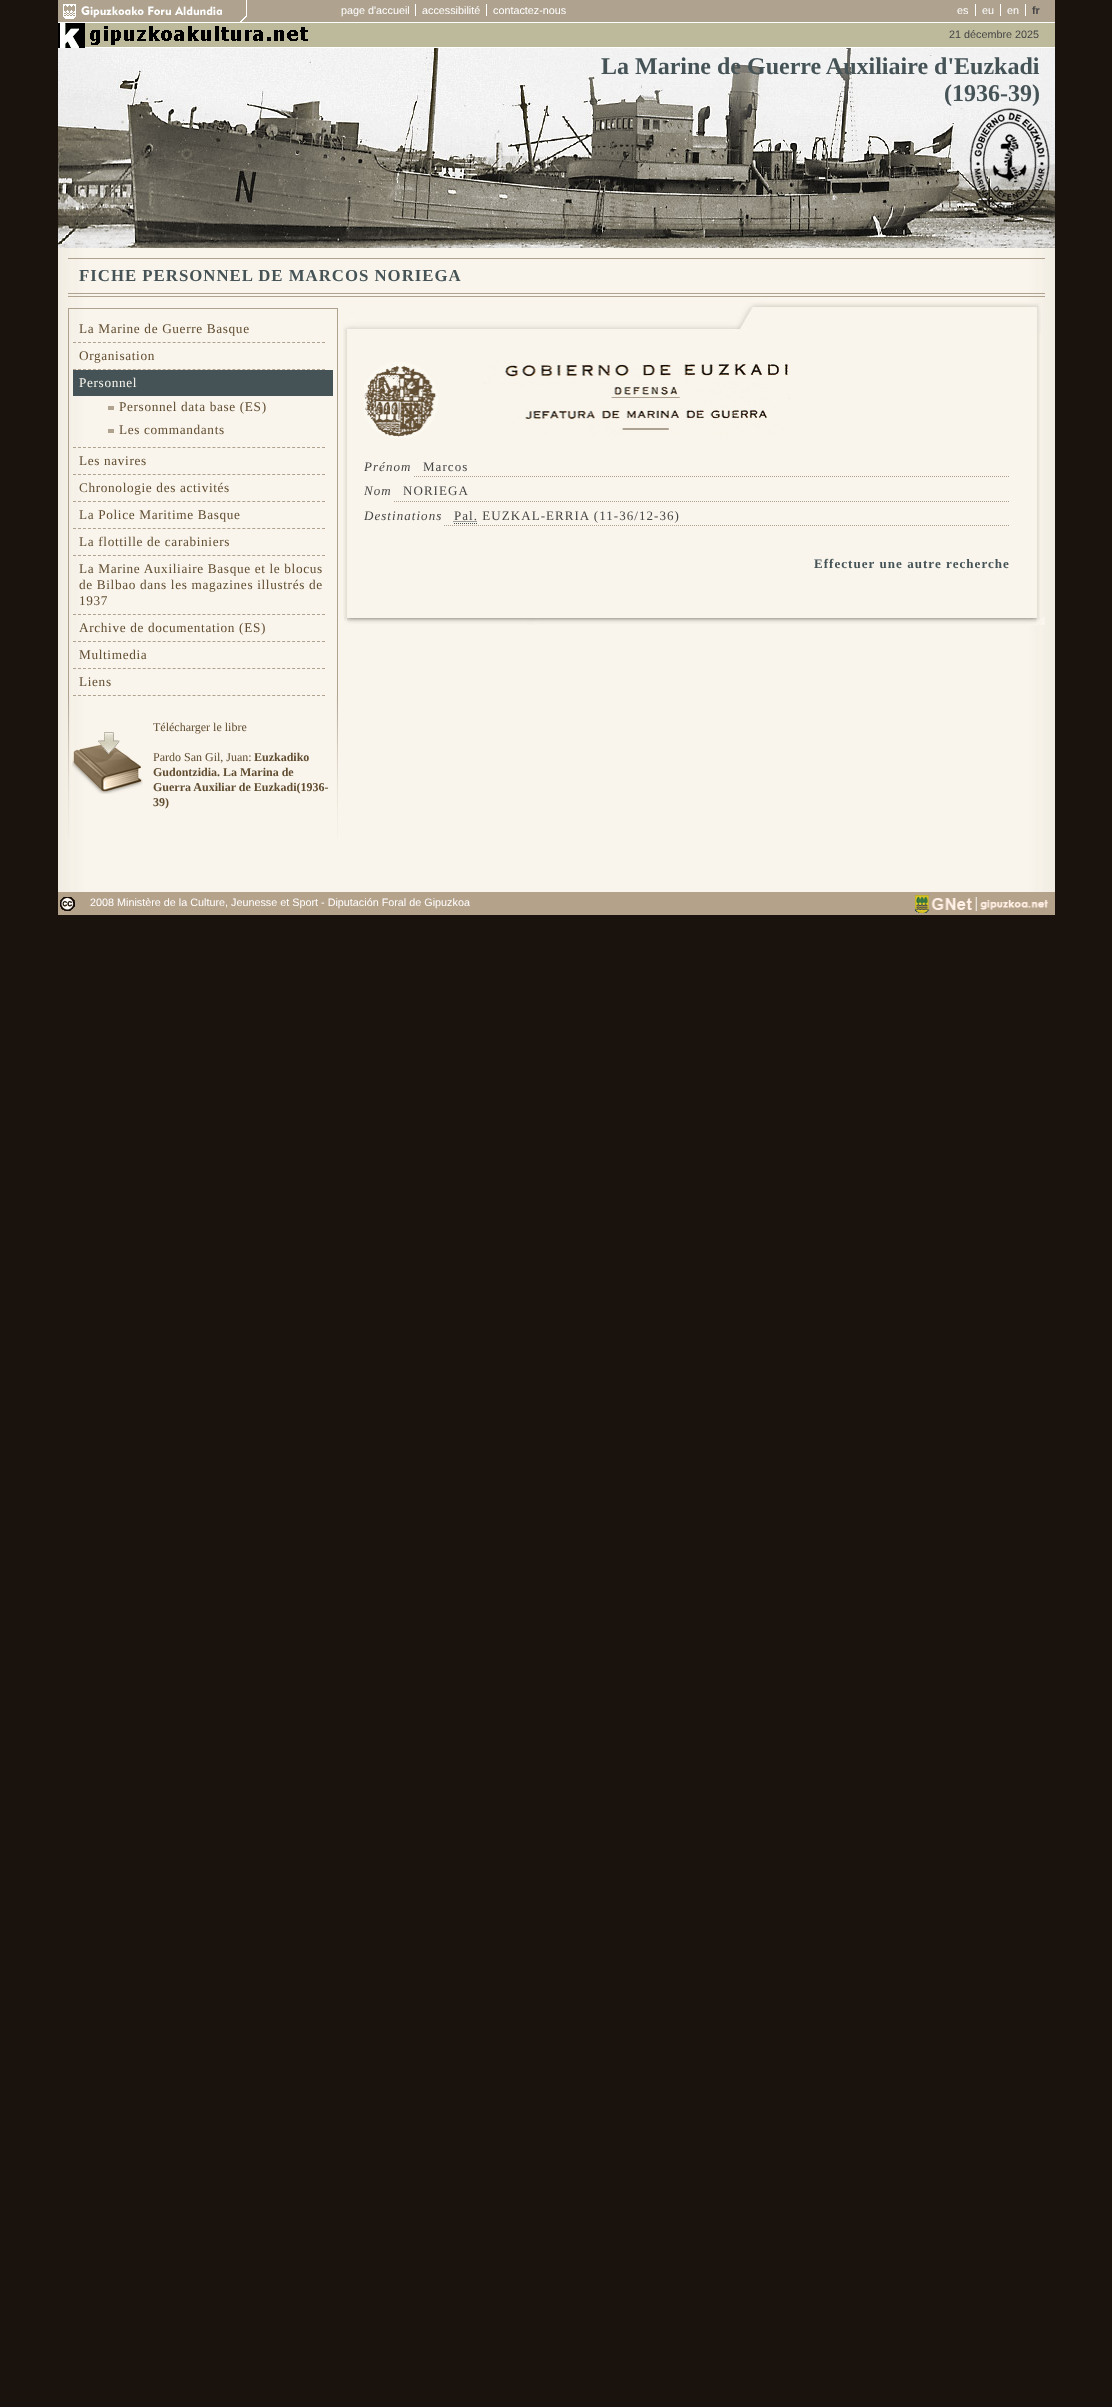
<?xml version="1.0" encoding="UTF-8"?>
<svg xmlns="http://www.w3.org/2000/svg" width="1112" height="2407">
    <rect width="100%" height="100%" fill="#19120D"/>
    <rect x="58" y="0" width="997" height="22" fill="#AFA390"/>
    <rect x="58" y="22" width="997" height="1" fill="#FFFFFF"/>
    <image x="63" y="0" width="184" height="22" href="img_01.png"/>
    <rect x="415" y="4" width="1" height="12" fill="#FFFFFF"/>
    <text x="341" y="14" font-family="Liberation Sans" font-size="10.8" fill="#FFFFFF">page d'accueil</text>
    <rect x="486" y="4" width="1" height="12" fill="#FFFFFF"/>
    <text x="422" y="14" font-family="Liberation Sans" font-size="10.8" fill="#FFFFFF">accessibilité</text>
    <text x="493" y="14" font-family="Liberation Sans" font-size="10.8" fill="#FFFFFF">contactez-nous</text>
    <rect x="975" y="4" width="1" height="12" fill="#FFFFFF"/>
    <text x="957" y="14" font-family="Liberation Sans" font-size="10.8" fill="#FFFFFF">es</text>
    <rect x="1000" y="4" width="1" height="12" fill="#FFFFFF"/>
    <text x="982" y="14" font-family="Liberation Sans" font-size="10.8" fill="#FFFFFF">eu</text>
    <rect x="1025" y="4" width="1" height="12" fill="#FFFFFF"/>
    <text x="1007" y="14" font-family="Liberation Sans" font-size="10.8" fill="#FFFFFF">en</text>
    <text x="1032" y="14" font-family="Liberation Sans" font-size="10.8" font-weight="700" fill="#454545">fr</text>
    <rect x="85" y="23" width="970" height="24" fill="#BDB99B"/>
    <rect x="85" y="47" width="970" height="1" fill="#FFFFFF"/>
    <image x="58" y="23" width="250" height="25" href="img_02.png"/>
    <text x="949" y="38" font-family="Liberation Sans" font-size="10.8" fill="#454545">21 décembre 2025</text>
    <image x="58" y="48" width="997" height="200" href="img_03.png"/>
    <text x="601" y="74" font-family="Liberation Serif" font-size="24" font-weight="700" fill="#455357">La Marine de Guerre Auxiliaire d'Euzkadi</text>
    <text x="944" y="101" font-family="Liberation Serif" font-size="24" font-weight="700" fill="#455357">(1936-39)</text>
    <rect x="84" y="248" width="945" height="644" fill="#F9F5EC"/>
    <image x="58" y="248" width="997" height="644" href="img_04.png"/>
    <rect x="68" y="258" width="977" height="1" fill="#AFA390"/>
    <rect x="68" y="293" width="977" height="1" fill="#AFA390"/>
    <text x="79" y="281" font-family="Liberation Serif" font-size="16.8" font-weight="700" letter-spacing="1" fill="#455357">FICHE PERSONNEL DE MARCOS NORIEGA</text>
    <rect x="68" y="296" width="977" height="1" fill="#AFA390"/>
    <rect x="68" y="308" width="270" height="1" fill="#AFA390"/>
    <rect x="337" y="308" width="1" height="388" fill="#AFA390"/>
    <rect x="68" y="308" width="1" height="388" fill="#AFA390"/>
    <path d="M 73 342.5 H 325" fill="none" stroke="#AFA390" stroke-dasharray="3 1.98"/>
    <text x="79" y="333" font-family="Liberation Serif" font-size="13.25" letter-spacing="0.65" fill="#614D31">La Marine de Guerre Basque</text>
    <path d="M 73 369.5 H 325" fill="none" stroke="#AFA390" stroke-dasharray="3 1.98"/>
    <text x="79" y="360" font-family="Liberation Serif" font-size="13.25" letter-spacing="0.65" fill="#614D31">Organisation</text>
    <path d="M 73 447.5 H 325" fill="none" stroke="#AFA390" stroke-dasharray="3 1.98"/>
    <rect x="73" y="370" width="260" height="26" fill="#455357"/>
    <text x="79" y="387" font-family="Liberation Serif" font-size="13.25" letter-spacing="0.65" fill="#F9F5EC">Personnel</text>
    <rect x="108" y="406" width="6" height="4" fill="#AFA390"/>
    <text x="119" y="411" font-family="Liberation Serif" font-size="13.25" letter-spacing="0.65" fill="#614D31">Personnel data base (ES)</text>
    <rect x="108" y="429" width="6" height="4" fill="#AFA390"/>
    <text x="119" y="434" font-family="Liberation Serif" font-size="13.25" letter-spacing="0.65" fill="#614D31">Les commandants</text>
    <path d="M 73 474.5 H 325" fill="none" stroke="#AFA390" stroke-dasharray="3 1.98"/>
    <text x="79" y="465" font-family="Liberation Serif" font-size="13.25" letter-spacing="0.65" fill="#614D31">Les navires</text>
    <path d="M 73 501.5 H 325" fill="none" stroke="#AFA390" stroke-dasharray="3 1.98"/>
    <text x="79" y="492" font-family="Liberation Serif" font-size="13.25" letter-spacing="0.65" fill="#614D31">Chronologie des activités</text>
    <path d="M 73 528.5 H 325" fill="none" stroke="#AFA390" stroke-dasharray="3 1.98"/>
    <text x="79" y="519" font-family="Liberation Serif" font-size="13.25" letter-spacing="0.65" fill="#614D31">La Police Maritime Basque</text>
    <path d="M 73 555.5 H 325" fill="none" stroke="#AFA390" stroke-dasharray="3 1.98"/>
    <text x="79" y="546" font-family="Liberation Serif" font-size="13.25" letter-spacing="0.65" fill="#614D31">La flottille de carabiniers</text>
    <path d="M 73 614.5 H 325" fill="none" stroke="#AFA390" stroke-dasharray="3 1.98"/>
    <text font-family="Liberation Serif" font-size="13.25" letter-spacing="0.65" fill="#614D31">
        <tspan x="79" y="573">La Marine Auxiliaire Basque et le blocus</tspan>
        <tspan x="79" y="589">de Bilbao dans les magazines illustrés de</tspan>
        <tspan x="79" y="605">1937</tspan>
    </text>
    <path d="M 73 641.5 H 325" fill="none" stroke="#AFA390" stroke-dasharray="3 1.98"/>
    <text x="79" y="632" font-family="Liberation Serif" font-size="13.25" letter-spacing="0.65" fill="#614D31">Archive de documentation (ES)</text>
    <path d="M 73 668.5 H 325" fill="none" stroke="#AFA390" stroke-dasharray="3 1.98"/>
    <text x="79" y="659" font-family="Liberation Serif" font-size="13.25" letter-spacing="0.65" fill="#614D31">Multimedia</text>
    <path d="M 73 695.5 H 325" fill="none" stroke="#AFA390" stroke-dasharray="3 1.98"/>
    <text x="79" y="686" font-family="Liberation Serif" font-size="13.25" letter-spacing="0.65" fill="#614D31">Liens</text>
    <image x="68" y="696" width="270" height="141" href="img_05.png"/>
    <image x="72" y="732" width="71" height="62" href="img_06.png"/>
    <text x="153" y="731" font-family="Liberation Serif" font-size="12" fill="#614D31">Télécharger le libre</text>
    <text x="153" y="761" font-family="Liberation Serif" font-size="12" fill="#614D31">Pardo San Gil, Juan:</text>
    <text x="254" y="761" font-family="Liberation Serif" font-size="12" font-weight="700" fill="#614D31">Euzkadiko</text>
    <text font-family="Liberation Serif" font-size="12" font-weight="700" fill="#614D31">
        <tspan x="153" y="776">Gudontzidia. La Marina de</tspan>
        <tspan x="153" y="791">Guerra Auxiliar de Euzkadi(1936-</tspan>
        <tspan x="153" y="806">39)</tspan>
    </text>
    <image x="343" y="302" width="698" height="31" href="img_07.png"/>
    <image x="343" y="333" width="697" height="284" href="img_08.png"/>
    <image x="364" y="362" width="426" height="76" href="img_09.png"/>
    <path d="M 364 476.5 H 1009" fill="none" stroke="#AFA390" stroke-dasharray="1 1"/>
    <text x="364" y="471" font-family="Liberation Serif" font-size="13" font-style="italic" letter-spacing="1.05" fill="#454545">Prénom</text>
    <rect x="412" y="476" width="1" height="2" fill="#F9F5EC"/>
    <rect x="364" y="476" width="50" height="1" fill="#F9F5EC"/>
    <text x="423" y="471" font-family="Liberation Serif" font-size="13" letter-spacing="1.05" fill="#454545">Marcos</text>
    <path d="M 364 501.5 H 1009" fill="none" stroke="#AFA390" stroke-dasharray="1 1"/>
    <text x="364" y="495" font-family="Liberation Serif" font-size="13" font-style="italic" letter-spacing="1.05" fill="#454545">Nom</text>
    <rect x="364" y="501" width="30" height="1" fill="#F9F5EC"/>
    <text x="403" y="495" font-family="Liberation Serif" font-size="13" letter-spacing="1.05" fill="#454545">NORIEGA</text>
    <path d="M 364 525.5 H 1009" fill="none" stroke="#AFA390" stroke-dasharray="1 1"/>
    <text x="364" y="520" font-family="Liberation Serif" font-size="13" font-style="italic" letter-spacing="1.05" fill="#454545">Destinations</text>
    <rect x="442" y="525" width="1" height="2" fill="#F9F5EC"/>
    <rect x="364" y="525" width="80" height="1" fill="#F9F5EC"/>
    <path d="M 453.5 521.5 H 477.5" fill="none" stroke="#454545" stroke-dasharray="1 1"/>
    <text x="454" y="520" font-family="Liberation Serif" font-size="13" letter-spacing="1.05" fill="#454545">Pal. EUZKAL-ERRIA (11-36/12-36)</text>
    <path d="M 454 523.5 H 478" fill="none" stroke="#455357" stroke-dasharray="1 1"/>
    <text x="814" y="568" font-family="Liberation Serif" font-size="13" font-weight="700" letter-spacing="1.05" fill="#455357">Effectuer une autre recherche</text>
    <image x="344" y="617" width="701" height="8" href="img_10.png"/>
    <rect x="58" y="892" width="997" height="23" fill="#B5A28B"/>
    <image x="60" y="897" width="15" height="14" href="img_11.png"/>
    <text x="90" y="906" font-family="Liberation Sans" font-size="10.8" fill="#FFFFFF">2008 Ministère de la Culture, Jeunesse et Sport - Diputación Foral de Gipuzkoa</text>
    <image x="915" y="895" width="134" height="18" href="img_12.png"/>
</svg>
